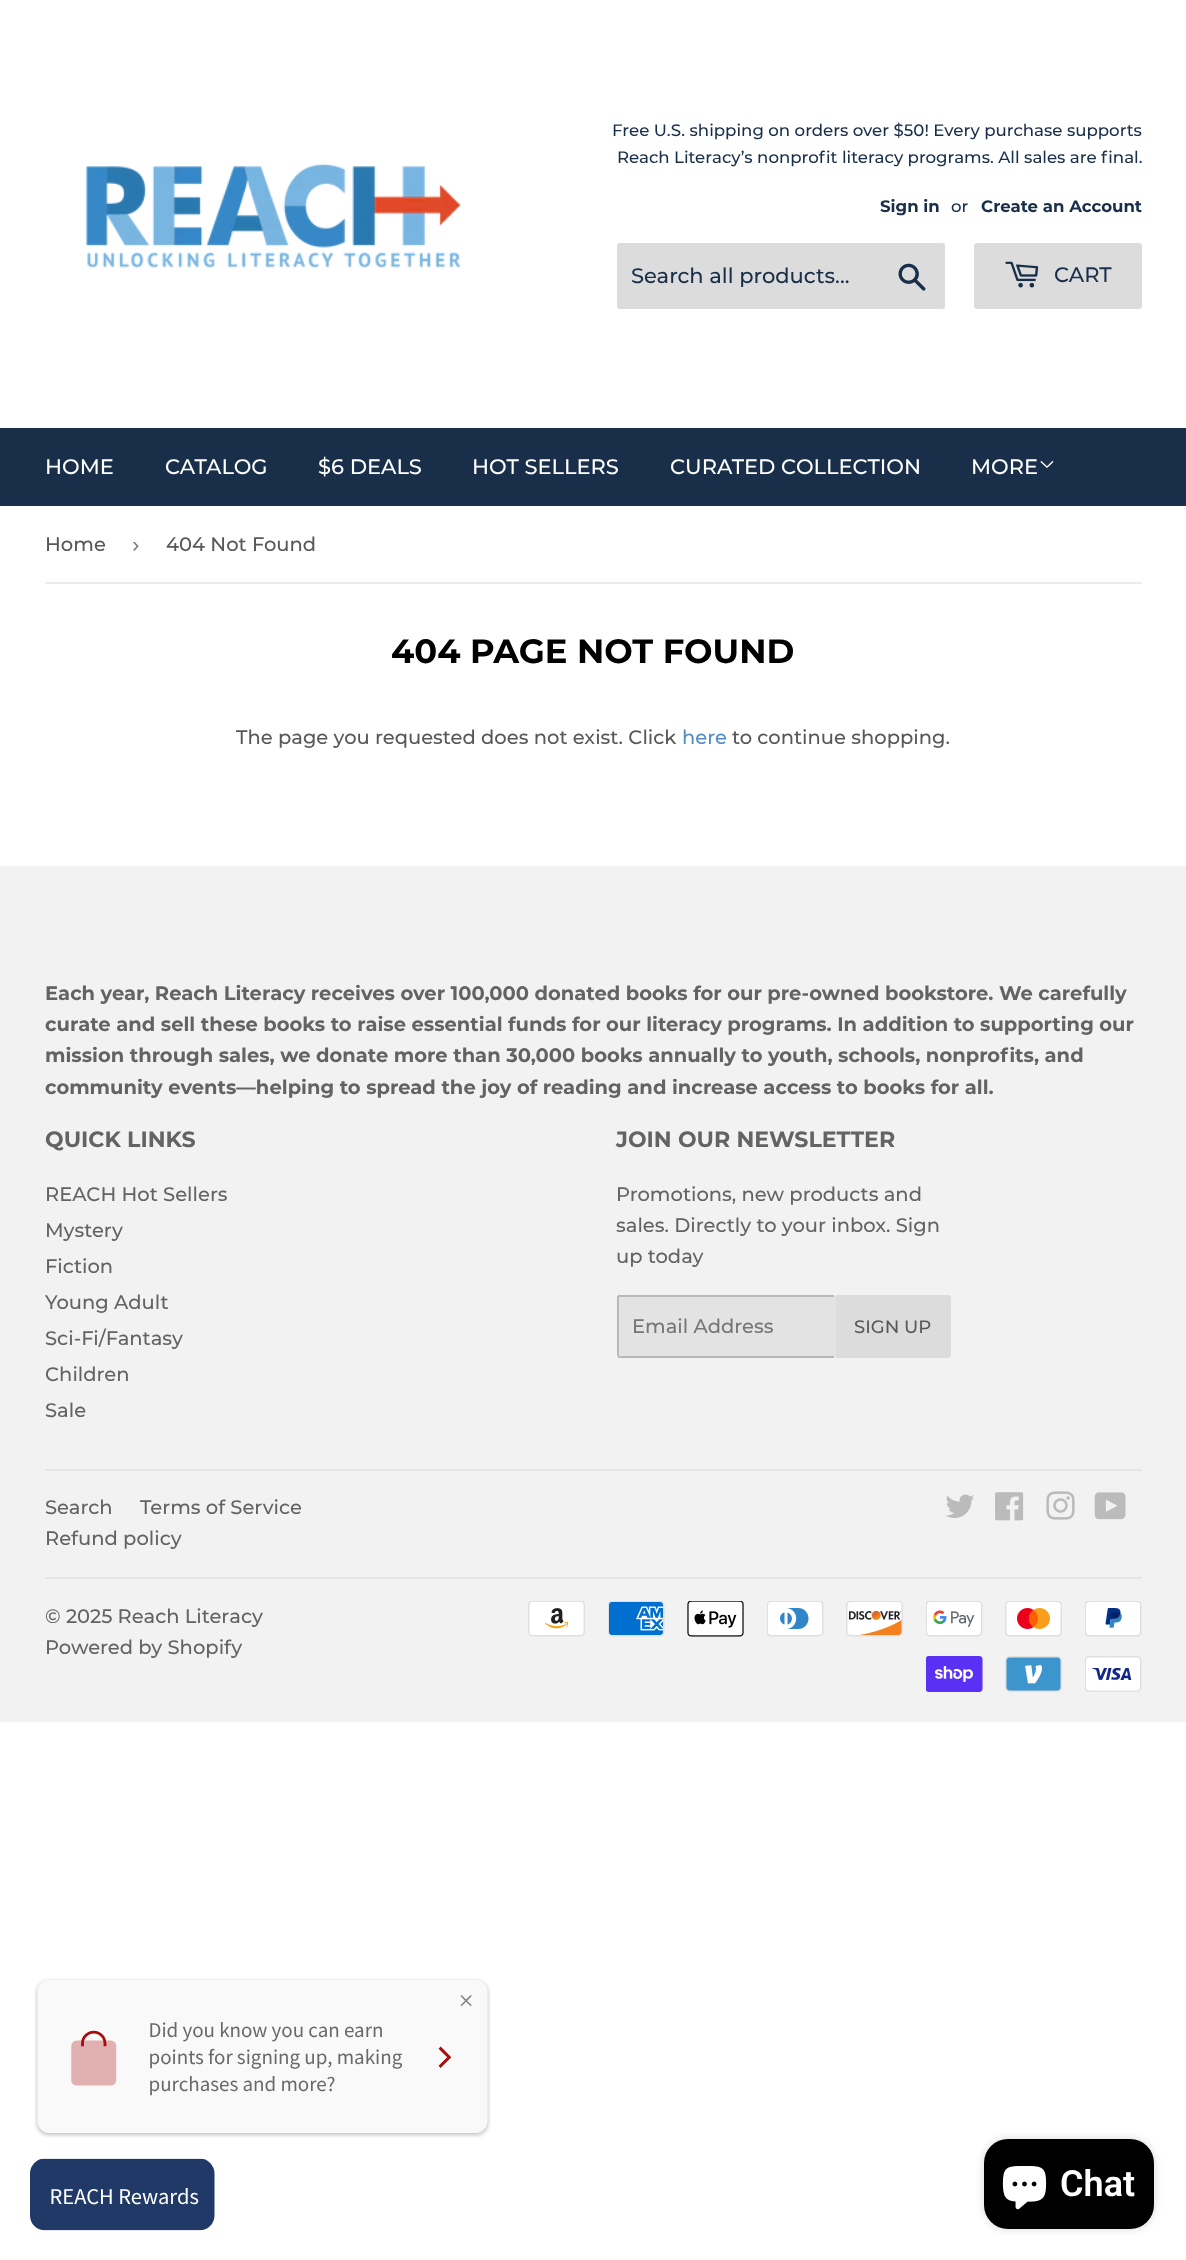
<?xml version="1.0" encoding="UTF-8"?>
<svg xmlns="http://www.w3.org/2000/svg" width="1186" height="2260">
    <defs>
        <filter id="blur1" x="-50%" y="-200%" width="200%" height="500%"><feGaussianBlur stdDeviation="4"/></filter>
    </defs>
    <rect width="100%" height="100%" fill="#FFFFFF"/>
    <image x="86" y="163" width="375" height="105" href="img_01.png"/>
    <text x="612" y="136" font-family="Montserrat" font-size="16.6" font-weight="500" fill="#182E49">Free U.S. shipping on orders over $50! Every purchase supports</text>
    <text x="617" y="163" font-family="Montserrat" font-size="16.6" font-weight="500" fill="#182E49">Reach Literacy’s nonprofit literacy programs. All sales are final.</text>
    <text x="880" y="212" font-family="Montserrat" font-size="16.6" font-weight="700" fill="#182E49">Sign in</text>
    <text x="951" y="212" font-family="Montserrat" font-size="16.6" font-weight="500" fill="#182E49">or</text>
    <text x="981" y="212" font-family="Montserrat" font-size="16.6" font-weight="700" fill="#182E49">Create an Account</text>
    <rect x="617" y="243" width="328" height="66" rx="3" fill="#DCDCDC"/>
    <text x="631" y="283" font-family="Montserrat" font-size="21" font-weight="500" fill="#182E49">Search all products...</text>
    <image x="898" y="263" width="28" height="28" href="img_02.png"/>
    <rect x="974" y="243" width="168" height="66" rx="3" fill="#DCDCDC"/>
    <image x="1005" y="261" width="34" height="27" href="img_03.png"/>
    <text x="1054" y="282" font-family="Montserrat" font-size="21" font-weight="500" fill="#182E49">CART</text>
    <rect x="0" y="428" width="1186" height="78" fill="#182E49"/>
    <text x="45" y="474" font-family="Montserrat" font-size="21" font-weight="500" fill="#FFFFFF">HOME</text>
    <text x="165" y="474" font-family="Montserrat" font-size="21" font-weight="500" fill="#FFFFFF">CATALOG</text>
    <text x="318" y="474" font-family="Montserrat" font-size="21" font-weight="500" fill="#FFFFFF">$6 DEALS</text>
    <text x="472" y="474" font-family="Montserrat" font-size="21" font-weight="500" fill="#FFFFFF">HOT SELLERS</text>
    <text x="670" y="474" font-family="Montserrat" font-size="21" font-weight="500" fill="#FFFFFF">CURATED COLLECTION</text>
    <text x="971" y="474" font-family="Montserrat" font-size="21" font-weight="500" fill="#FFFFFF">MORE</text>
    <image x="1040" y="461" width="14" height="7" href="img_04.png"/>
    <rect x="45" y="582" width="1097" height="2" fill="#ECECEC"/>
    <text x="45" y="551" font-family="Montserrat" font-size="19.5" font-weight="500" fill="#585858">Home</text>
    <text x="132" y="552" font-family="Liberation Sans" font-size="22" fill="#767676">›</text>
    <text x="166" y="551" font-family="Montserrat" font-size="19.5" font-weight="500" fill="#585858">404 Not Found</text>
    <text x="391" y="663" font-family="Montserrat" font-size="33.75" font-weight="700" fill="#000000">404 PAGE NOT FOUND</text>
    <text x="236" y="744" font-family="Montserrat" font-size="19.5" font-weight="500" fill="#585858">The page you requested does not exist. Click</text>
    <text x="682" y="744" font-family="Montserrat" font-size="19.5" font-weight="500" fill="#528EC1">here</text>
    <text x="732" y="744" font-family="Montserrat" font-size="19.5" font-weight="500" fill="#585858">to continue shopping.</text>
    <rect x="0" y="866" width="1186" height="856" fill="#F2F2F2"/>
    <text font-family="Montserrat" font-size="19.5" font-weight="700" fill="#636363">
        <tspan x="45" y="1000">Each year, Reach Literacy receives over 100,000 donated books for our pre-owned bookstore. We carefully</tspan>
        <tspan x="45" y="1031">curate and sell these books to raise essential funds for our literacy programs. In addition to supporting our</tspan>
        <tspan x="45" y="1062">mission through sales, we donate more than 30,000 books annually to youth, schools, nonprofits, and</tspan>
        <tspan x="45" y="1094">community events—helping to spread the joy of reading and increase access to books for all.</tspan>
    </text>
    <text x="45" y="1147" font-family="Montserrat" font-size="22.1" font-weight="700" fill="#636363">QUICK LINKS</text>
    <text font-family="Montserrat" font-size="19.5" font-weight="500" fill="#636363">
        <tspan x="45" y="1201">REACH Hot Sellers</tspan>
        <tspan x="45" y="1237">Mystery</tspan>
        <tspan x="45" y="1273">Fiction</tspan>
        <tspan x="45" y="1309">Young Adult</tspan>
        <tspan x="45" y="1345">Sci-Fi/Fantasy</tspan>
        <tspan x="45" y="1381">Children</tspan>
        <tspan x="45" y="1417">Sale</tspan>
    </text>
    <text x="616" y="1147" font-family="Montserrat" font-size="22.1" font-weight="700" fill="#636363">JOIN OUR NEWSLETTER</text>
    <text font-family="Montserrat" font-size="19.5" font-weight="500" fill="#636363">
        <tspan x="616" y="1201">Promotions, new products and</tspan>
        <tspan x="616" y="1232">sales. Directly to your inbox. Sign</tspan>
        <tspan x="616" y="1263">up today</tspan>
    </text>
    <rect x="617" y="1295" width="219" height="63" rx="3" fill="#E3E3E3"/>
    <rect x="618" y="1295" width="216" height="2" fill="#B9B9B9"/>
    <rect x="618" y="1356" width="216" height="2" fill="#B9B9B9"/>
    <rect x="617" y="1296" width="2" height="60" fill="#B9B9B9"/>
    <text x="632" y="1333" font-family="Montserrat" font-size="19.5" font-weight="500" fill="#767676">Email Address</text>
    <path d="M 836 1295 H 948 C 949.5 1295 951 1296.5 951 1298 V 1355 C 951 1356.5 949.5 1358 948 1358 H 836 Z" fill="#DCDCDC"/>
    <text x="854" y="1333" font-family="Montserrat" font-size="18" font-weight="500" fill="#585858">SIGN UP</text>
    <rect x="45" y="1469" width="1097" height="2" fill="#E5E5E5"/>
    <text x="45" y="1514" font-family="Montserrat" font-size="19.5" font-weight="500" fill="#636363">Search</text>
    <text x="140" y="1514" font-family="Montserrat" font-size="19.5" font-weight="500" fill="#636363">Terms of Service</text>
    <text x="45" y="1545" font-family="Montserrat" font-size="19.5" font-weight="500" fill="#636363">Refund policy</text>
    <image x="945" y="1494" width="29" height="24" href="img_05.png"/>
    <image x="995" y="1492" width="29" height="29" href="img_06.png"/>
    <image x="1046" y="1491" width="29" height="29" href="img_07.png"/>
    <image x="1094" y="1492" width="32" height="28" href="img_08.png"/>
    <rect x="45" y="1577" width="1097" height="2" fill="#E5E5E5"/>
    <text font-family="Montserrat" font-size="19.5" font-weight="500" fill="#636363">
        <tspan x="45" y="1623">© 2025 Reach Literacy</tspan>
        <tspan x="45" y="1654">Powered by Shopify</tspan>
    </text>
    <image x="528" y="1601" width="57" height="36" href="img_09.png"/>
    <image x="608" y="1601" width="57" height="36" href="img_10.png"/>
    <image x="687" y="1601" width="57" height="36" href="img_11.png"/>
    <image x="767" y="1601" width="57" height="36" href="img_12.png"/>
    <image x="846" y="1601" width="57" height="36" href="img_13.png"/>
    <image x="926" y="1601" width="57" height="36" href="img_14.png"/>
    <image x="1005" y="1601" width="57" height="36" href="img_15.png"/>
    <image x="1085" y="1601" width="57" height="36" href="img_16.png"/>
    <image x="926" y="1656" width="57" height="36" href="img_17.png"/>
    <image x="1005" y="1656" width="57" height="36" href="img_18.png"/>
    <image x="1085" y="1656" width="57" height="36" href="img_19.png"/>
    <image x="34" y="1978" width="457" height="160" href="img_20.png"/>
    <image x="30" y="2158" width="185" height="73" href="img_21.png"/>
    <rect x="984" y="2139" width="170" height="90" rx="24" fill="#000000" fill-opacity="0.15" filter="url(#blur1)"/>
    <rect x="984" y="2139" width="170" height="90" rx="24" fill="#000000"/>
    <image x="1002" y="2166" width="45" height="44" href="img_22.png"/>
    <text x="1060" y="2196" font-family="Roboto" font-size="36" font-weight="600" fill="#FFFFFF">Chat</text>
</svg>
